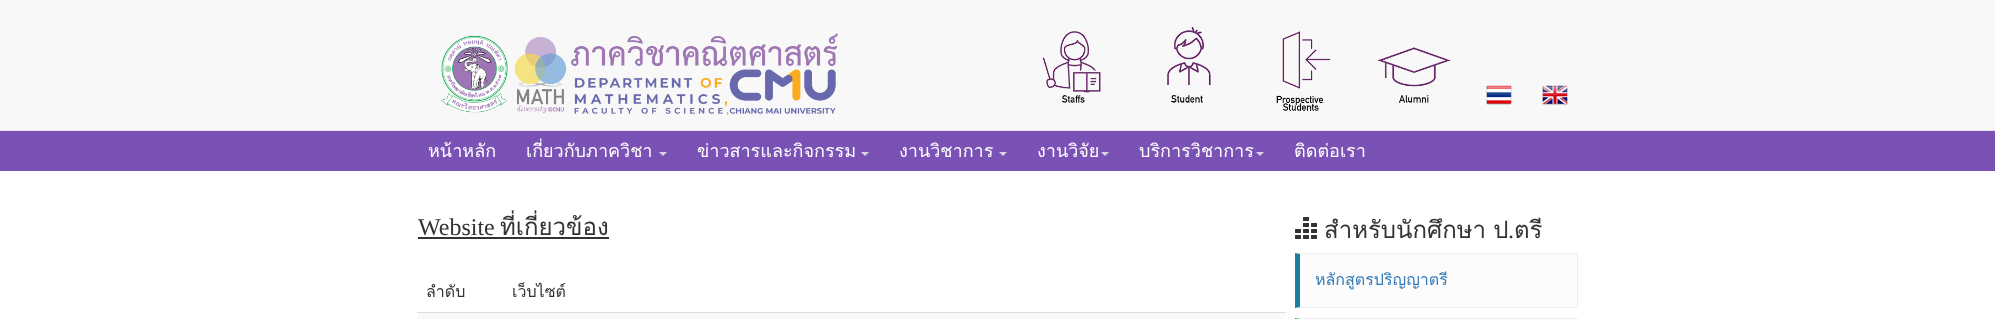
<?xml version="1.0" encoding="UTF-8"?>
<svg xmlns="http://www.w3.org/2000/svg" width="1995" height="319">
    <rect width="100%" height="100%" fill="#FFFFFF"/>
    <rect x="0" y="0" width="1995" height="130" fill="#F8F8F8"/>
    <rect x="0" y="130" width="1995" height="1" fill="#E7E7E7"/>
    <image x="441" y="33" width="397" height="82" href="img_01.png"/>
    <image x="1042" y="31" width="59" height="72" href="img_02.png"/>
    <image x="1167" y="26" width="44" height="77" href="img_03.png"/>
    <image x="1276" y="31" width="55" height="80" href="img_04.png"/>
    <image x="1377" y="47" width="74" height="56" href="img_05.png"/>
    <image x="1486" y="85" width="26" height="20" href="img_06.png"/>
    <image x="1542" y="85" width="26" height="20" href="img_07.png"/>
    <rect x="0" y="131" width="1995" height="40" fill="#7A52B5"/>
    <text x="428" y="157" font-family="Loma" font-size="18" fill="#FFFFFF">หน้าหลัก</text>
    <text x="526" y="157" font-family="Loma" font-size="18" fill="#FFFFFF">เกี่ยวกับภาควิชา</text>
    <path d="M 659 152 H 667 L 663 156 Z" fill="#DBD5E1"/>
    <text x="697" y="157" font-family="Loma" font-size="18" fill="#FFFFFF">ข่าวสารและกิจกรรม</text>
    <path d="M 861 152 H 869 L 865 156 Z" fill="#DBD5E1"/>
    <text x="899" y="157" font-family="Loma" font-size="18" fill="#FFFFFF">งานวิชาการ</text>
    <path d="M 999 152 H 1007 L 1003 156 Z" fill="#DBD5E1"/>
    <text x="1037" y="157" font-family="Loma" font-size="18" fill="#FFFFFF">งานวิจัย</text>
    <path d="M 1101 152 H 1109 L 1105 156 Z" fill="#DBD5E1"/>
    <text x="1139" y="157" font-family="Loma" font-size="18" fill="#FFFFFF">บริการวิชาการ</text>
    <path d="M 1256 152 H 1264 L 1260 156 Z" fill="#DBD5E1"/>
    <text x="1294" y="157" font-family="Loma" font-size="18" fill="#FFFFFF">ติดต่อเรา</text>
    <text x="418" y="235" font-family="Liberation Serif" font-size="24" fill="#333333">Website</text>
    <rect x="418" y="237" width="191" height="2" fill="#333333"/>
    <text x="500" y="235" font-family="Loma" font-size="24" fill="#333333">ที่เกี่ยวข้อง</text>
    <text x="426" y="297" font-family="Loma" font-size="16" fill="#333333">ลำดับ</text>
    <text x="512" y="297" font-family="Loma" font-size="16" fill="#333333">เว็บไซต์</text>
    <rect x="418" y="313" width="867" height="6" fill="#F9F9F9"/>
    <rect x="417" y="312" width="869" height="1" fill="#DDDDDD"/>
    <image x="1295" y="217" width="22" height="22" href="img_08.png"/>
    <text x="1324" y="238" word-spacing="-1" font-family="Loma" font-size="24" fill="#333333">สำหรับนักศึกษา ป</text>
    <text x="1508" y="238" font-family="Liberation Serif" font-size="24" fill="#333333">.</text>
    <text x="1514" y="238" font-family="Loma" font-size="24" fill="#333333">ตรี</text>
    <rect x="1300" y="254" width="277" height="53" fill="#FCFCFC"/>
    <path d="M 1295 253 H 1578 L 1577 254 H 1300 Z" fill="#EEEEEE"/>
    <rect x="1577" y="253" width="1" height="55" fill="#EEEEEE"/>
    <path d="M 1578 308 H 1295 L 1300 307 H 1577 Z" fill="#EEEEEE"/>
    <path d="M 1295 308 V 253 L 1300 254 V 307 Z" fill="#1B809E"/>
    <text x="1315" y="285" font-family="Loma" font-size="16" fill="#337AB7">หลักสูตรปริญญาตรี</text>
    <path d="M 1295 318 H 1578 L 1577 319 H 1300 Z" fill="#EEEEEE"/>
    <rect x="1577" y="318" width="1" height="1" fill="#EEEEEE"/>
    <path d="M 1295 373 V 318 L 1300 319 V 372 Z" fill="#09A707"/>
</svg>
